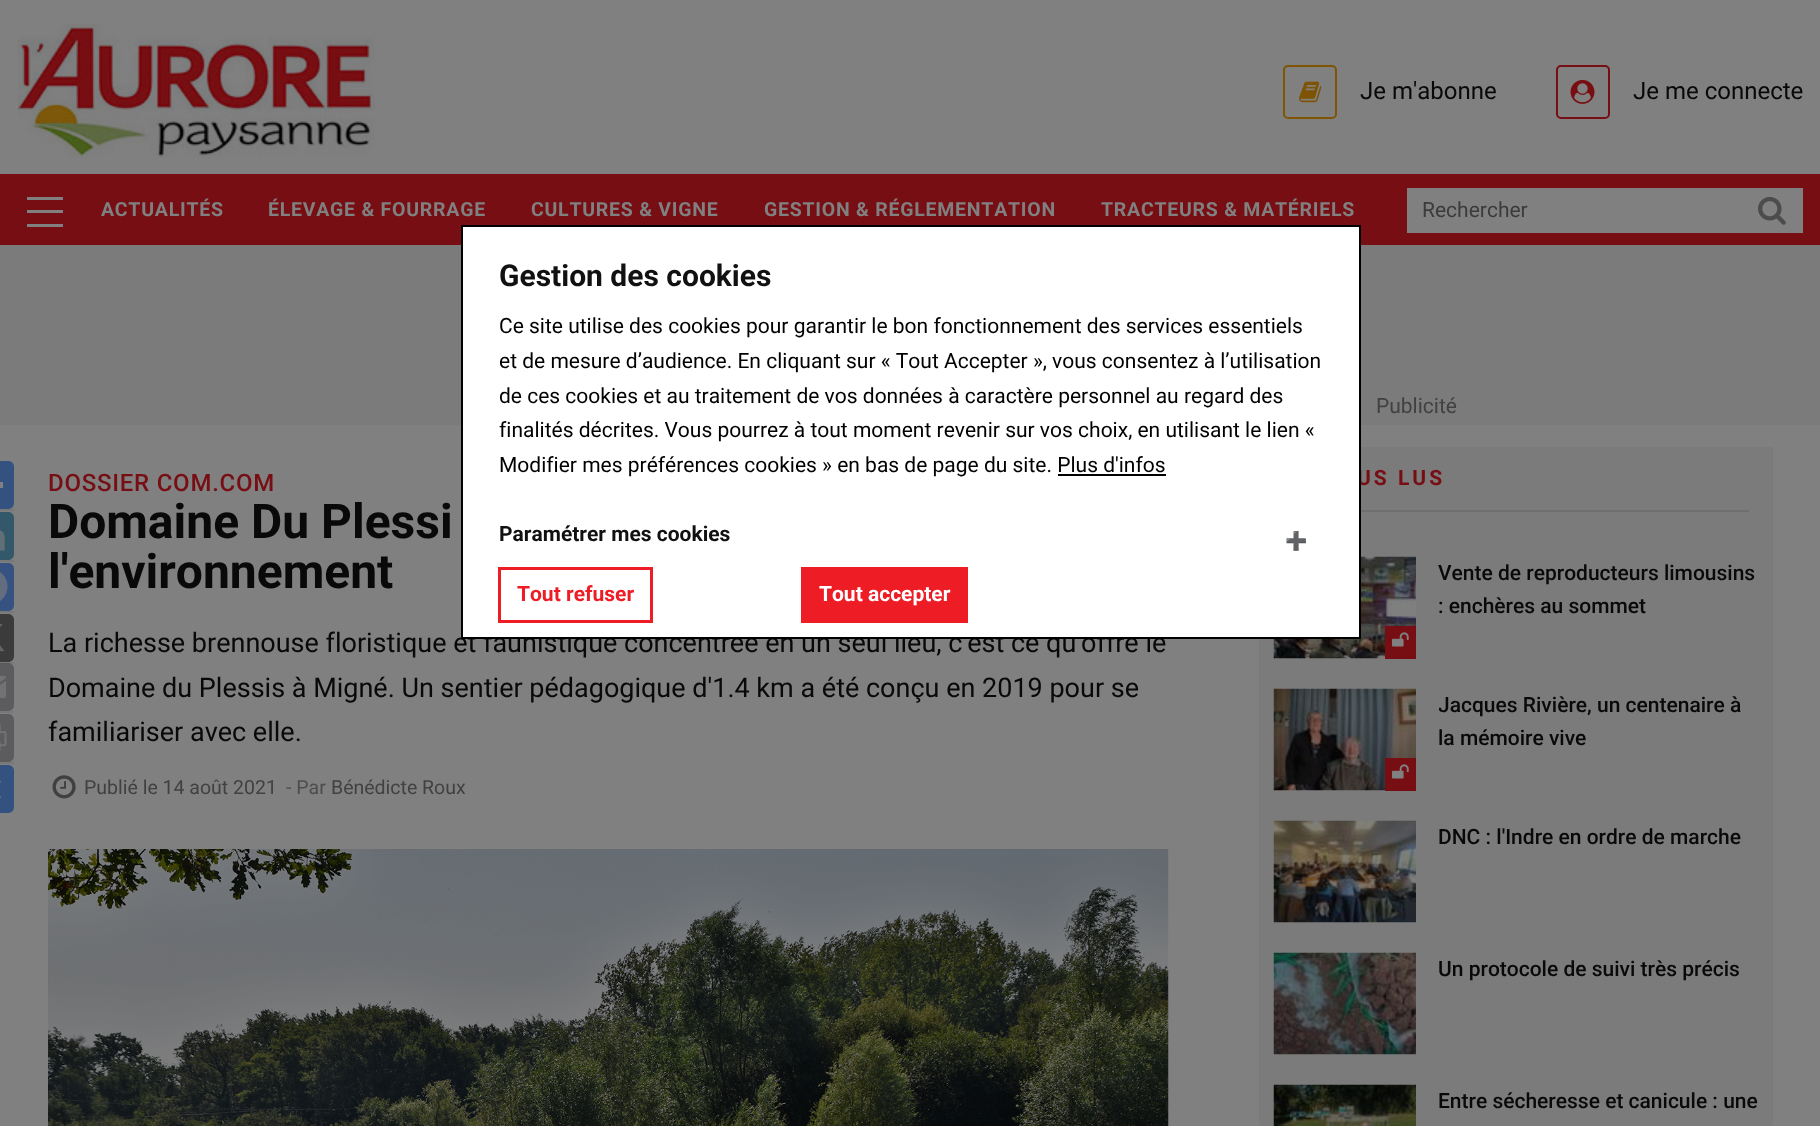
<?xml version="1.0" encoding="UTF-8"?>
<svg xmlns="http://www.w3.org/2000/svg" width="1820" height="1126">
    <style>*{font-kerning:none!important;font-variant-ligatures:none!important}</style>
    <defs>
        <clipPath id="clip1"><rect x="1439" y="689" width="319" height="66"/></clipPath>
    </defs>
    <rect width="100%" height="100%" fill="#808080"/>
    <image x="18" y="24" width="357" height="134" href="img_01.png"/>
    <rect x="1284" y="66" width="52" height="52" rx="4" fill="none" stroke="#7F5504" stroke-width="2"/>
    <image x="1299" y="81" width="23" height="22" href="img_02.png"/>
    <text x="1360" y="99" font-family="Roboto" font-size="24" fill="#090909">Je m'abonne</text>
    <rect x="1557" y="66" width="52" height="52" rx="4" fill="none" stroke="#770E13" stroke-width="2"/>
    <image x="1570" y="79" width="25" height="25" href="img_03.png"/>
    <text x="1633" y="99" font-family="Roboto" font-size="24" fill="#090909">Je me connecte</text>
    <rect x="0" y="174" width="1820" height="71" fill="#770E13"/>
    <rect x="27" y="197" width="36" height="3" fill="#808080"/>
    <rect x="27" y="210" width="36" height="3" fill="#808080"/>
    <rect x="27" y="224" width="36" height="3" fill="#808080"/>
    <text x="101" y="216" font-family="Roboto" font-size="19.5" font-weight="700" letter-spacing="0.75" fill="#808080">ACTUALITÉS</text>
    <text x="268" y="216" font-family="Roboto" font-size="19.5" font-weight="700" letter-spacing="0.75" fill="#808080">ÉLEVAGE &amp; FOURRAGE</text>
    <text x="531" y="216" font-family="Roboto" font-size="19.5" font-weight="700" letter-spacing="0.75" fill="#808080">CULTURES &amp; VIGNE</text>
    <text x="764" y="216" font-family="Roboto" font-size="19.5" font-weight="700" letter-spacing="0.75" fill="#808080">GESTION &amp; RÉGLEMENTATION</text>
    <text x="1101" y="216" font-family="Roboto" font-size="19.5" font-weight="700" letter-spacing="0.75" fill="#808080">TRACTEURS &amp; MATÉRIELS</text>
    <rect x="1407" y="188" width="396" height="45" fill="#808080"/>
    <text x="1422" y="217" font-family="Roboto" font-size="21" fill="#3B3B3B">Rechercher</text>
    <image x="1758" y="197" width="28" height="28" href="img_04.png"/>
    <rect x="0" y="245" width="1820" height="180" fill="#7B7B7B"/>
    <text x="1376" y="413" font-family="Roboto" font-size="21" fill="#414141">Publicité</text>
    <rect x="0" y="509" width="14" height="2" fill="#787878"/>
    <path d="M 0 461 H 8 C 11.5 461 14 463.5 14 467 V 503 C 14 506.5 11.5 509 8 509 H 0 Z" fill="#345280"/>
    <rect x="0" y="482" width="3" height="6" fill="#808080"/>
    <rect x="0" y="560" width="14" height="2" fill="#787878"/>
    <path d="M 0 512 H 8 C 11.5 512 14 514.5 14 518 V 554 C 14 557.5 11.5 560 8 560 H 0 Z" fill="#33586A"/>
    <image x="0" y="530" width="5" height="21" href="img_05.png"/>
    <rect x="0" y="611" width="14" height="2" fill="#787878"/>
    <path d="M 0 563 H 8 C 11.5 563 14 565.5 14 569 V 605 C 14 608.5 11.5 611 8 611 H 0 Z" fill="#365280"/>
    <image x="0" y="572" width="8" height="29" href="img_06.png"/>
    <rect x="0" y="662" width="14" height="2" fill="#787878"/>
    <path d="M 0 614 H 8 C 11.5 614 14 616.5 14 620 V 656 C 14 659.5 11.5 662 8 662 H 0 Z" fill="#3B3B3B"/>
    <image x="0" y="624" width="5" height="28" href="img_07.png"/>
    <rect x="0" y="711" width="14" height="2" fill="#787878"/>
    <path d="M 0 663 H 8 C 11.5 663 14 665.5 14 669 V 705 C 14 708.5 11.5 711 8 711 H 0 Z" fill="#444548" fill-opacity="0.6"/>
    <image x="0" y="675" width="6" height="24" href="img_08.png"/>
    <rect x="0" y="762" width="14" height="2" fill="#787878"/>
    <path d="M 0 714 H 8 C 11.5 714 14 716.5 14 720 V 756 C 14 759.5 11.5 762 8 762 H 0 Z" fill="#5C5C5E"/>
    <image x="0" y="724" width="7" height="27" href="img_09.png"/>
    <path d="M 0 765 H 8 C 11.5 765 14 767.5 14 771 V 807 C 14 810.5 11.5 813 8 813 H 0 Z" fill="#345280"/>
    <image x="0" y="780" width="2" height="19" href="img_10.png"/>
    <text x="48" y="491" font-family="Roboto" font-size="24" font-weight="500" letter-spacing="0.75" fill="#770E13">DOSSIER COM.COM</text>
    <text font-family="Roboto" font-size="48" font-weight="700" fill="#090909">
        <tspan x="48" y="538">Domaine Du Plessi</tspan>
        <tspan x="48" y="588">l'environnement</tspan>
    </text>
    <text font-family="Roboto" font-size="27" fill="#090909">
        <tspan x="48" y="652">La richesse brennouse floristique et faunistique concentrée en un seul lieu, c'est ce qu'offre le</tspan>
        <tspan x="48" y="697">Domaine du Plessis à Migné. Un sentier pédagogique d'1.4 km a été conçu en 2019 pour se</tspan>
        <tspan x="48" y="741">familiariser avec elle.</tspan>
    </text>
    <image x="52" y="775" width="24" height="24" href="img_11.png"/>
    <text x="84" y="794" font-family="Roboto" font-size="19.5" fill="#414141">Publié le 14 août 2021</text>
    <text x="286" y="794" font-family="Roboto" font-size="19.5" fill="#4D4D4D">- Par</text>
    <text x="331" y="794" font-family="Roboto" font-size="19.5" fill="#414141">Bénédicte Roux</text>
    <image x="48" y="849" width="1121" height="277" href="img_12.png"/>
    <rect x="1259" y="447" width="514" height="679" fill="#7B7B7B"/>
    <rect x="1361" y="510" width="388" height="2" fill="#6F6F6F"/>
    <text x="1357" y="485" font-family="Roboto" font-size="21" font-weight="700" letter-spacing="3" fill="#770E13">US LUS</text>
    <image x="1273" y="556" width="143" height="103" href="img_13.png"/>
    <rect x="1385" y="626" width="31" height="33" fill="#770E13"/>
    <image x="1392" y="632" width="17" height="15" href="img_14.png"/>
    <text font-family="Roboto" font-size="21" font-weight="500" fill="#090909">
        <tspan x="1438" y="580">Vente de reproducteurs limousins</tspan>
        <tspan x="1438" y="613">: enchères au sommet</tspan>
    </text>
    <image x="1273" y="688" width="143" height="103" href="img_15.png"/>
    <rect x="1385" y="758" width="31" height="33" fill="#770E13"/>
    <image x="1392" y="764" width="17" height="15" href="img_14.png"/>
    <g clip-path="url(#clip1)">
        <text x="1438" y="712" font-family="Roboto" font-size="21" font-weight="500" fill="#090909">Jacques Rivière, un centenaire à</text>
    </g>
    <text x="1438" y="745" font-family="Roboto" font-size="21" font-weight="500" fill="#090909">la mémoire vive</text>
    <image x="1273" y="820" width="143" height="103" href="img_16.png"/>
    <text x="1438" y="844" font-family="Roboto" font-size="21" font-weight="500" fill="#090909">DNC : l'Indre en ordre de marche</text>
    <image x="1273" y="952" width="143" height="103" href="img_17.png"/>
    <text x="1438" y="976" font-family="Roboto" font-size="21" font-weight="500" fill="#090909">Un protocole de suivi très précis</text>
    <image x="1273" y="1084" width="143" height="42" href="img_18.png"/>
    <text x="1438" y="1108" font-family="Roboto" font-size="21" font-weight="500" fill="#090909">Entre sécheresse et canicule : une</text>
    <rect x="462" y="226" width="898" height="412" fill="#FFFFFF" stroke="#000000" stroke-width="2"/>
    <text x="499" y="286" font-family="Roboto" font-size="30" font-weight="700" fill="#111111">Gestion des cookies</text>
    <text font-family="Roboto" font-size="21" fill="#000000">
        <tspan x="499" y="333">Ce site utilise des cookies pour garantir le bon fonctionnement des services essentiels</tspan>
        <tspan x="499" y="368">et de mesure d’audience. En cliquant sur « Tout Accepter », vous consentez à l’utilisation</tspan>
        <tspan x="499" y="403">de ces cookies et au traitement de vos données à caractère personnel au regard des</tspan>
        <tspan x="499" y="437">finalités décrites. Vous pourrez à tout moment revenir sur vos choix, en utilisant le lien «</tspan>
        <tspan x="499" y="472">Modifier mes préférences cookies » en bas de page du site. Plus d'infos</tspan>
    </text>
    <rect x="1058" y="474" width="108" height="2" fill="#000000"/>
    <text x="499" y="541" font-family="Roboto" font-size="21" font-weight="700" fill="#111111">Paramétrer mes cookies</text>
    <text x="1285" y="547" font-family="Noto Color Emoji" font-size="18" font-weight="700" fill="#111111">➕</text>
    <rect x="499.5" y="568.5" width="152" height="53" fill="none" stroke="#EE1C25" stroke-width="3"/>
    <text x="517" y="601" font-family="Roboto" font-size="21" font-weight="700" fill="#EE1C25">Tout refuser</text>
    <rect x="801" y="567" width="167" height="56" fill="#EE1C25"/>
    <text x="819" y="601" font-family="Roboto" font-size="21" font-weight="700" fill="#FFFFFF">Tout accepter</text>
</svg>
